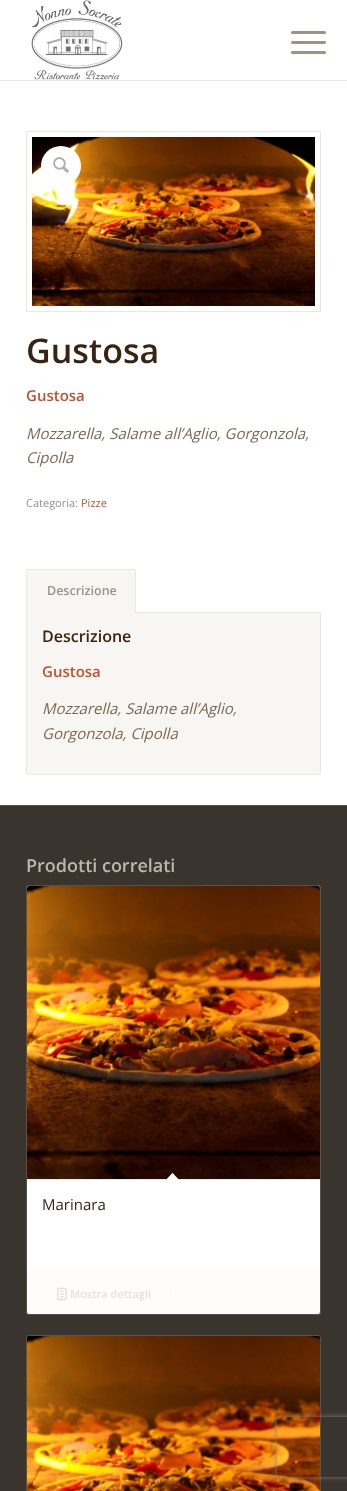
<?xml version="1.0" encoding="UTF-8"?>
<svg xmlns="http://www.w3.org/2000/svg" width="347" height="1491">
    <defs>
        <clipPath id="clip1"><path d="M 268 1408 H 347 V 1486 H 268 Z M 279 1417 H 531 C 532 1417 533 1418 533 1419 V 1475 C 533 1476 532 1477 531 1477 H 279 C 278 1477 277 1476 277 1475 V 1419 C 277 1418 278 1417 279 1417 Z" clip-rule="evenodd"/></clipPath>
        <filter id="blur1" x="-50%" y="-200%" width="200%" height="500%"><feGaussianBlur stdDeviation="2.5"/></filter>
    </defs>
    <rect width="100%" height="100%" fill="#FFFFFF"/>
    <rect x="0" y="80" width="347" height="1" fill="#EBE8E2"/>
    <image x="31" y="0" width="92" height="80" href="img_01.png"/>
    <rect x="291" y="41" width="35" height="3" rx="1.5" fill="#9C9288"/>
    <rect x="291" y="31" width="35" height="3" rx="1.5" fill="#9C9288"/>
    <rect x="291" y="51" width="35" height="3" rx="1.5" fill="#9C9288"/>
    <rect x="26.5" y="131.5" width="294" height="180" fill="none" stroke="#EBE8E2"/>
    <image x="32" y="137" width="283" height="169" href="img_02.png"/>
    <circle cx="61" cy="166" r="20" fill="#FFFFFF"/>
    <image x="53" y="157" width="16" height="16" href="img_03.png"/>
    <text x="26" y="363" font-family="Open Sans" font-size="34" font-weight="600" fill="#382410">Gustosa</text>
    <text x="26" y="401" font-family="Open Sans" font-size="15" font-weight="600" fill="#C3512F">Gustosa</text>
    <text font-family="Open Sans" font-size="15" font-style="italic" fill="#7C6853">
        <tspan x="26" y="439">Mozzarella, Salame all’Aglio, Gorgonzola,</tspan>
        <tspan x="26" y="463">Cipolla</tspan>
    </text>
    <text x="26" y="507" font-family="Open Sans" font-size="11" fill="#9C9288">Categoria:</text>
    <text x="81" y="507" font-family="Open Sans" font-size="11" fill="#C3512F">Pizze</text>
    <path d="M 26.5 612.5 H 320.5 V 772 C 320.5 773.5 319.5 774.5 318 774.5 H 29 C 27.5 774.5 26.5 773.5 26.5 772 Z" fill="#F8F6F2" stroke="#EBE8E2"/>
    <rect x="26" y="569" width="110" height="44" fill="#F8F6F2"/>
    <rect x="27" y="569" width="108" height="1" fill="#EBE8E2"/>
    <rect x="135" y="570" width="1" height="43" fill="#EBE8E2"/>
    <rect x="26" y="570" width="1" height="43" fill="#EBE8E2"/>
    <text x="47" y="595" font-family="Open Sans" font-size="12.5" font-weight="600" fill="#9C9288">Descrizione</text>
    <text x="42" y="642" font-family="Open Sans" font-size="16" font-weight="600" fill="#382410">Descrizione</text>
    <text x="42" y="677" font-family="Open Sans" font-size="15" font-weight="600" fill="#C3512F">Gustosa</text>
    <text font-family="Open Sans" font-size="15" font-style="italic" fill="#7C6853">
        <tspan x="42" y="714">Mozzarella, Salame all’Aglio,</tspan>
        <tspan x="42" y="739">Gorgonzola, Cipolla</tspan>
    </text>
    <rect x="0" y="806" width="347" height="685" fill="#39342D"/>
    <rect x="0" y="805" width="347" height="1" fill="#575149"/>
    <text x="26" y="872" font-family="Open Sans" font-size="18" font-weight="600" fill="#BFB7AC">Prodotti correlati</text>
    <rect x="26.5" y="885.5" width="294" height="429" rx="2.5" fill="#FFFFFF" stroke="#575149"/>
    <image x="27" y="886" width="293" height="293" href="img_04.png"/>
    <rect x="27" y="1179" width="293" height="1" fill="#EBE8E2"/>
    <path d="M 172.5 1173 L 179.5 1180.5 L 172.5 1187.5 L 165.5 1180.5 Z" fill="#FFFFFF"/>
    <path d="M 172.5 1173 L 179.5 1180.5 L 179 1181 L 172 1174 Z" fill="#EBE8E2"/>
    <path d="M 172.5 1173 L 173 1174 L 166 1181 L 165.5 1180.5 Z" fill="#EBE8E2"/>
    <text x="42" y="1210" font-family="Open Sans" font-size="15" fill="#382410">Marinara</text>
    <path d="M 27 1270 H 320 V 1312 C 320 1313 319 1314 318 1314 H 29 C 28 1314 27 1313 27 1312 Z" fill="#F8F6F2" fill-opacity="0.2"/>
    <rect x="27" y="1270" width="293" height="1" fill="#FBFAF9"/>
    <image x="57" y="1287" width="10" height="14" href="img_05.png"/>
    <text x="70" y="1298" font-family="Open Sans" font-size="11" font-weight="600" fill="#E5E1DD">Mostra dettagli</text>
    <rect x="170" y="1287" width="1" height="14" fill="#FBFAF9"/>
    <rect x="26.5" y="1335.5" width="294" height="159" rx="2.5" fill="none" stroke="#575149"/>
    <image x="27" y="1336" width="293" height="155" href="img_06.png"/>
    <g clip-path="url(#clip1)">
        <rect x="277" y="1417" width="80" height="60" rx="2" fill="#808080" filter="url(#blur1)"/>
    </g>
</svg>
